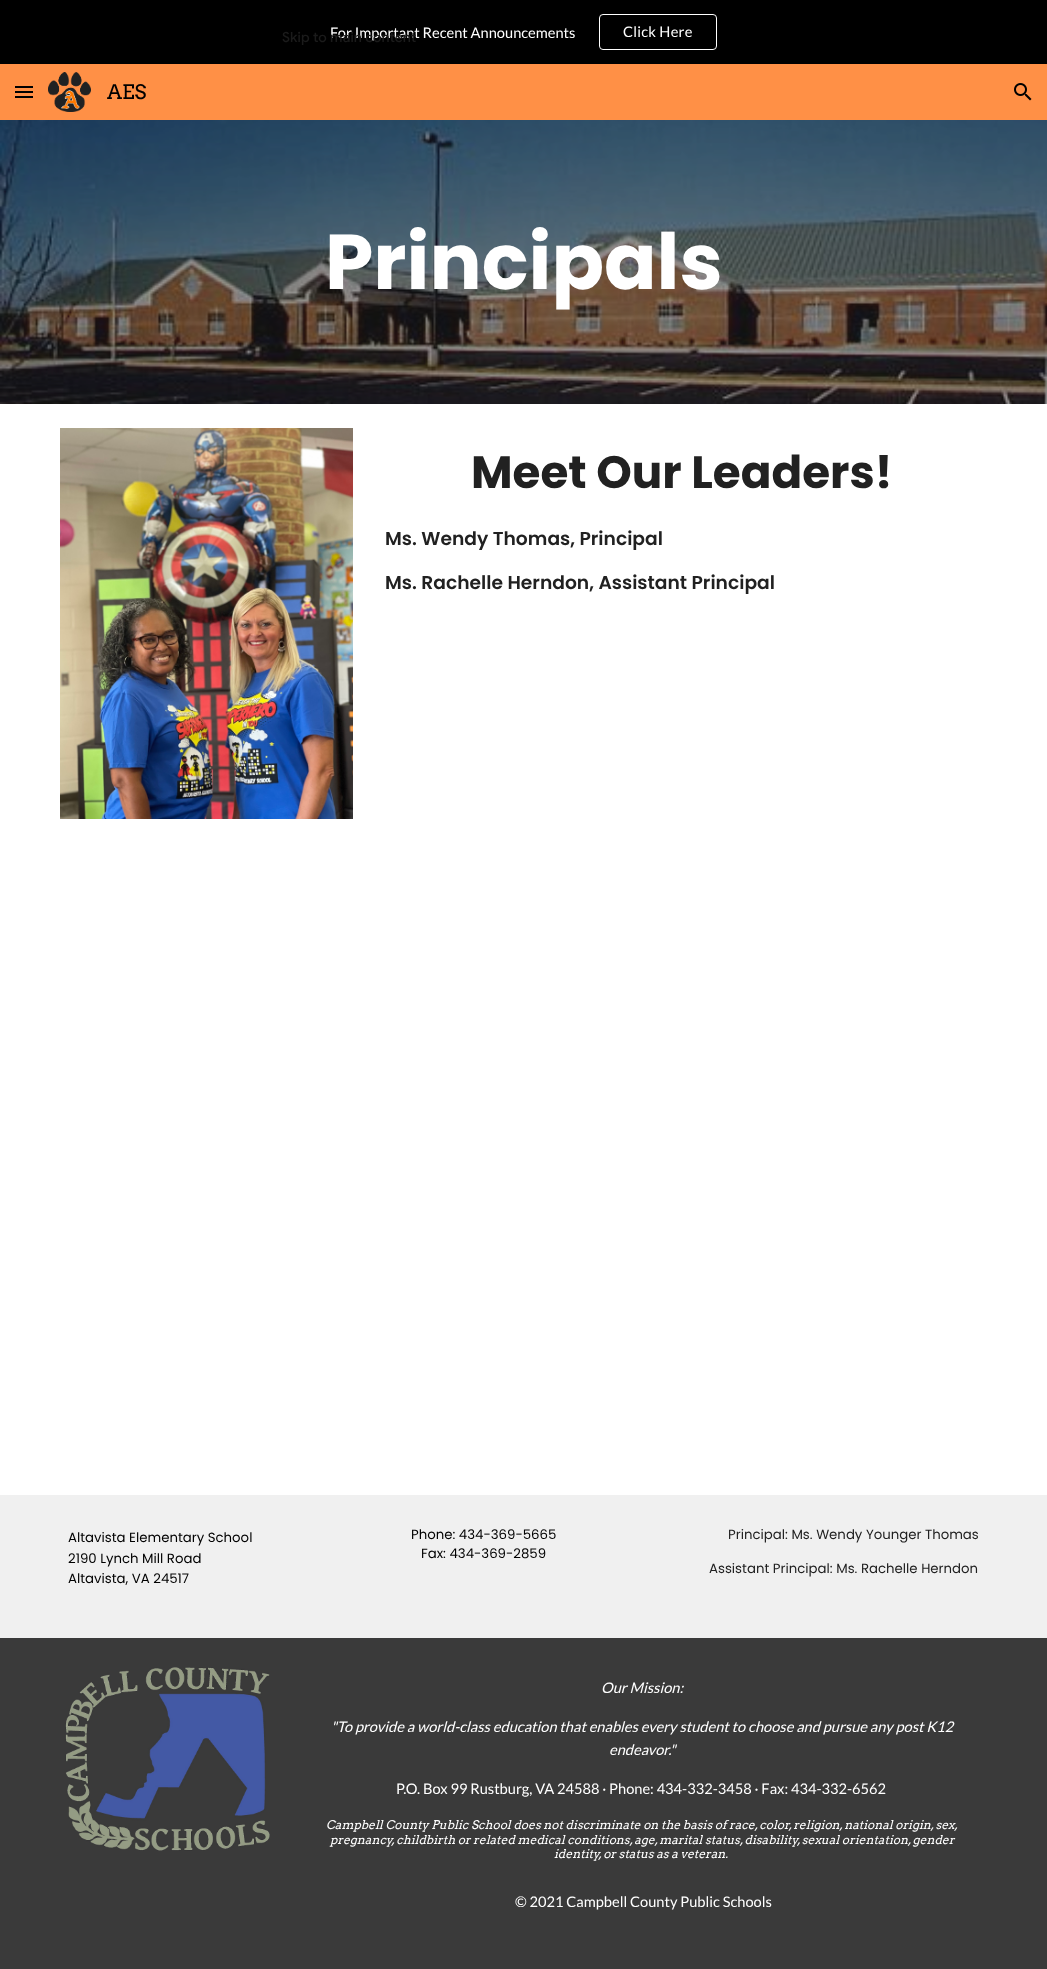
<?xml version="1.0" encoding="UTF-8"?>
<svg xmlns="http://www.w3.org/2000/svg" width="1047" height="1969">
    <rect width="100%" height="100%" fill="#FFFFFF"/>
    <rect x="0" y="0" width="1047" height="64" fill="#000000"/>
    <text x="330" y="38" font-family="Lato" font-size="14.65" fill="#FFFFFF">For Important Recent Announcements</text>
    <rect x="599.5" y="14.5" width="117" height="35" rx="3.5" fill="none" stroke="#FFFFFF"/>
    <text x="623" y="37" font-family="Lato" font-size="14.65" letter-spacing="0.25" fill="#FFFFFF">Click Here</text>
    <rect x="0" y="64" width="1047" height="56" fill="#FF9046"/>
    <rect x="15" y="86" width="18" height="2" fill="#000000"/>
    <rect x="15" y="91" width="18" height="2" fill="#000000"/>
    <rect x="15" y="96" width="18" height="2" fill="#000000"/>
    <image x="48" y="72" width="43" height="40" href="img_01.png"/>
    <text x="107" y="99" font-family="Arvo" font-size="20" fill="#000000">AES</text>
    <image x="1014" y="83" width="18" height="18" href="img_02.png"/>
    <image x="0" y="120" width="1047" height="284" href="img_03.png"/>
    <text x="325" y="289" font-family="Poppins" font-size="77.5" font-weight="700" fill="#FFFFFF">Principals</text>
    <image x="60" y="428" width="293" height="391" href="img_04.png"/>
    <text x="471" y="488" font-family="Poppins" font-size="45.25" font-weight="700" fill="#212121">Meet Our Leaders!</text>
    <text x="385" y="545" font-family="Poppins" font-size="18.7" font-weight="600" fill="#212121">Ms. Wendy Thomas, Principal</text>
    <text x="385" y="589" font-family="Poppins" font-size="18.7" font-weight="600" fill="#212121">Ms. Rachelle Herndon, Assistant Principal</text>
    <rect x="0" y="1495" width="1047" height="143" fill="#F0F0F0"/>
    <text font-family="Poppins" font-size="13.3" fill="#000000">
        <tspan x="68" y="1542">Altavista Elementary School</tspan>
        <tspan x="68" y="1563">2190 Lynch Mill Road</tspan>
        <tspan x="68" y="1583">Altavista, VA 24517</tspan>
    </text>
    <text x="411" y="1539" font-family="Poppins" font-size="13.3" fill="#000000">Phone: 434-369-5665</text>
    <text x="421" y="1558" font-family="Poppins" font-size="13.3" fill="#000000">Fax: 434-369-2859</text>
    <text x="728" y="1539" font-family="Poppins" font-size="13.3" fill="#212121">Principal: Ms. Wendy Younger Thomas</text>
    <text x="709" y="1573" font-family="Poppins" font-size="13.3" fill="#212121">Assistant Principal: Ms. Rachelle Herndon</text>
    <rect x="0" y="1638" width="1047" height="331" fill="#3A3A3A"/>
    <image x="65" y="1667" width="205" height="184" href="img_05.png"/>
    <text x="601" y="1693" font-family="Lato" font-size="14.65" font-style="italic" fill="#FFFFFF">Our Mission:</text>
    <text x="331" y="1732" font-family="Lato" font-size="14.65" font-style="italic" fill="#FFFFFF">"To provide a world-class education that enables every student to choose and pursue any post K12</text>
    <text x="609" y="1755" font-family="Lato" font-size="14.65" font-style="italic" fill="#FFFFFF">endeavor."</text>
    <text x="396" y="1794" font-family="Lato" font-size="14.65" fill="#FFFFFF">P.O. Box 99 Rustburg, VA 24588 · Phone: 434-332-3458 · Fax: 434-332-6562</text>
    <text x="326" y="1829" font-family="Arvo" font-size="12" font-style="italic" fill="#FFFFFF">Campbell County Public School does not discriminate on the basis of race, color, religion, national origin, sex,</text>
    <text x="330" y="1844" font-family="Arvo" font-size="12" font-style="italic" fill="#FFFFFF">pregnancy, childbirth or related medical conditions, age, marital status, disability, sexual orientation, gender</text>
    <text x="554" y="1858" font-family="Arvo" font-size="12" font-style="italic" fill="#FFFFFF">identity, or status as a veteran.</text>
    <text x="515" y="1907" font-family="Lato" font-size="14.65" fill="#FFFFFF">© 2021 Campbell County Public Schools</text>
    <text x="282" y="42" font-family="Google Sans" font-size="14" font-weight="500" letter-spacing="0.1" fill="#1B1B1B">Skip to main content</text>
</svg>
